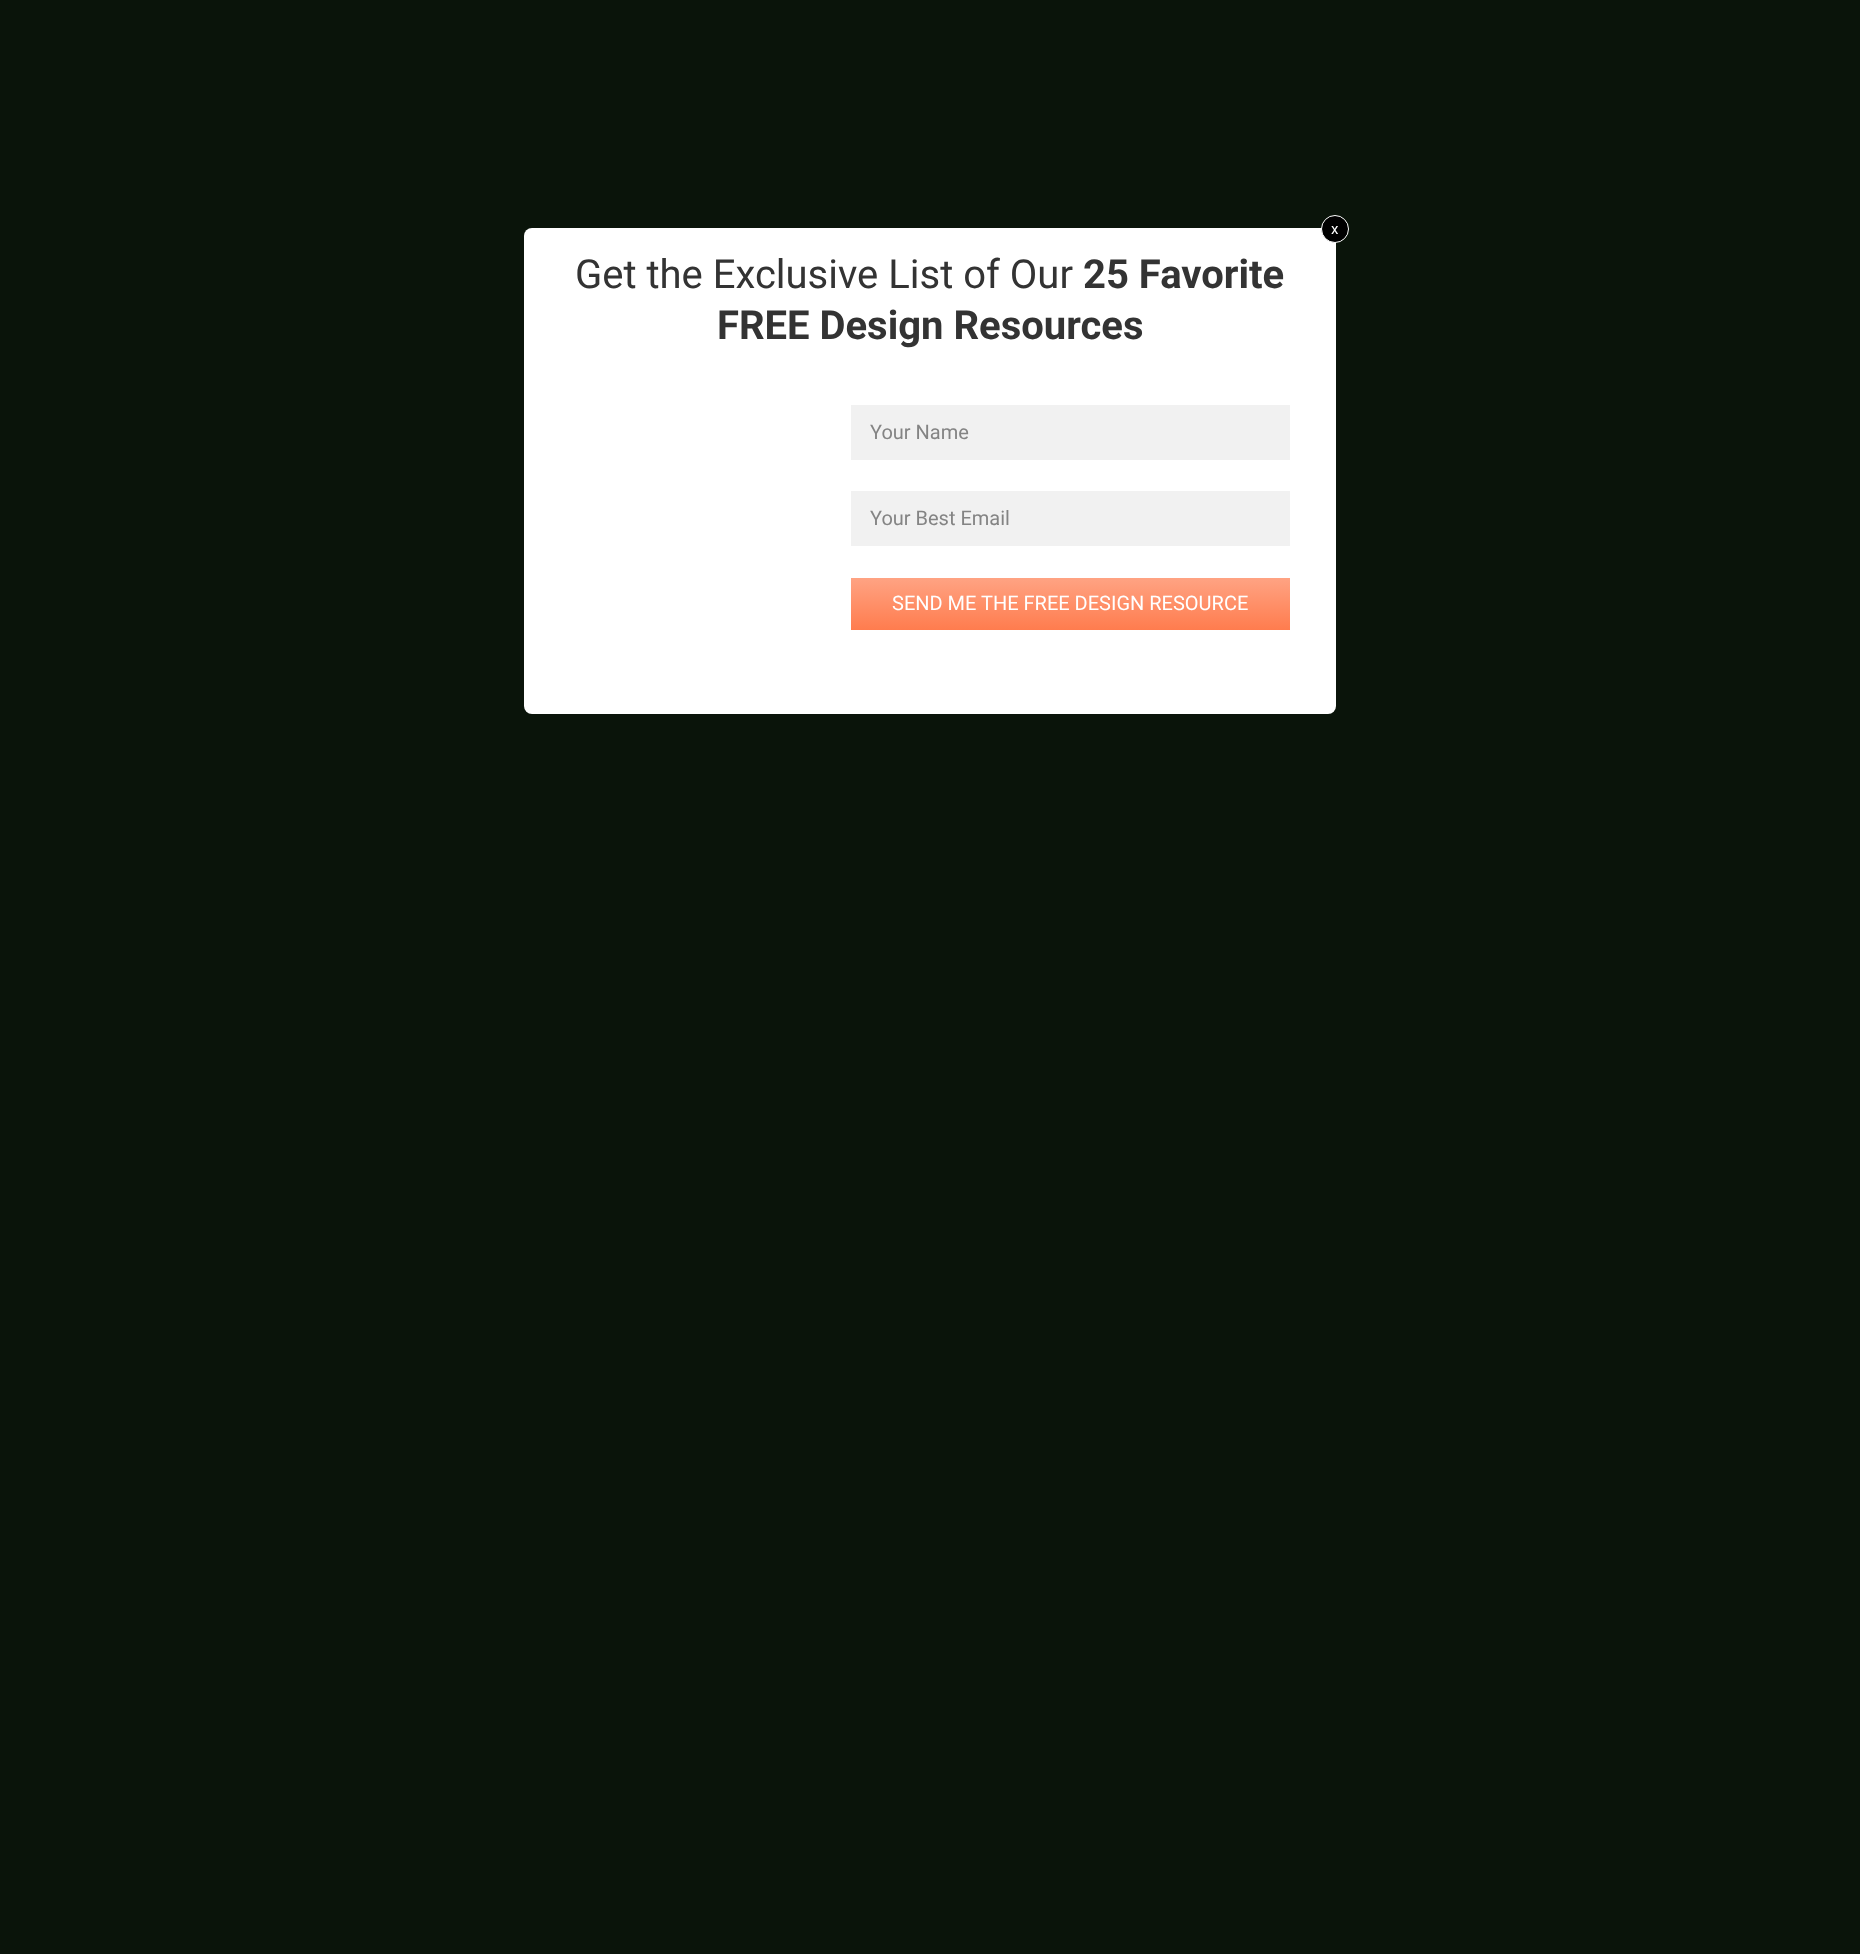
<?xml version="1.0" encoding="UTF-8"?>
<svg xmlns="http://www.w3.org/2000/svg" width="1860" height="1954">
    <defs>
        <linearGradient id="g1" gradientUnits="userSpaceOnUse" x1="1071" y1="578" x2="1071" y2="630"><stop offset="0" stop-color="#FFA383"/><stop offset="1" stop-color="#FF7C4E"/></linearGradient>
    </defs>
    <rect width="100%" height="100%" fill="#0A140A"/>
    <rect x="524" y="228" width="812" height="486" rx="8" fill="#FFFFFF"/>
    <circle cx="1335" cy="229" r="13.5" fill="#000000" stroke="#FFFFFF"/>
    <text x="1331" y="234" font-family="Roboto" font-size="15" fill="#FFFFFF">x</text>
    <text x="575" y="288" font-family="Roboto" font-size="40" fill="#333333">Get the Exclusive List of Our</text>
    <text x="1083" y="288" font-family="Roboto" font-size="40" font-weight="700" fill="#333333">25 Favorite</text>
    <text x="717" y="339" font-family="Roboto" font-size="40" font-weight="700" fill="#333333">FREE Design Resources</text>
    <rect x="851" y="405" width="439" height="55" fill="#F1F1F1"/>
    <text x="870" y="439" font-family="Roboto" font-size="20" fill="#848484">Your Name</text>
    <rect x="851" y="491" width="439" height="55" fill="#F1F1F1"/>
    <text x="870" y="525" font-family="Roboto" font-size="20" fill="#848484">Your Best Email</text>
    <rect x="851" y="578" width="439" height="52" fill="url(#g1)"/>
    <text x="892" y="610" font-family="Roboto" font-size="20" fill="#FFFFFF">SEND ME THE FREE DESIGN RESOURCE</text>
</svg>
